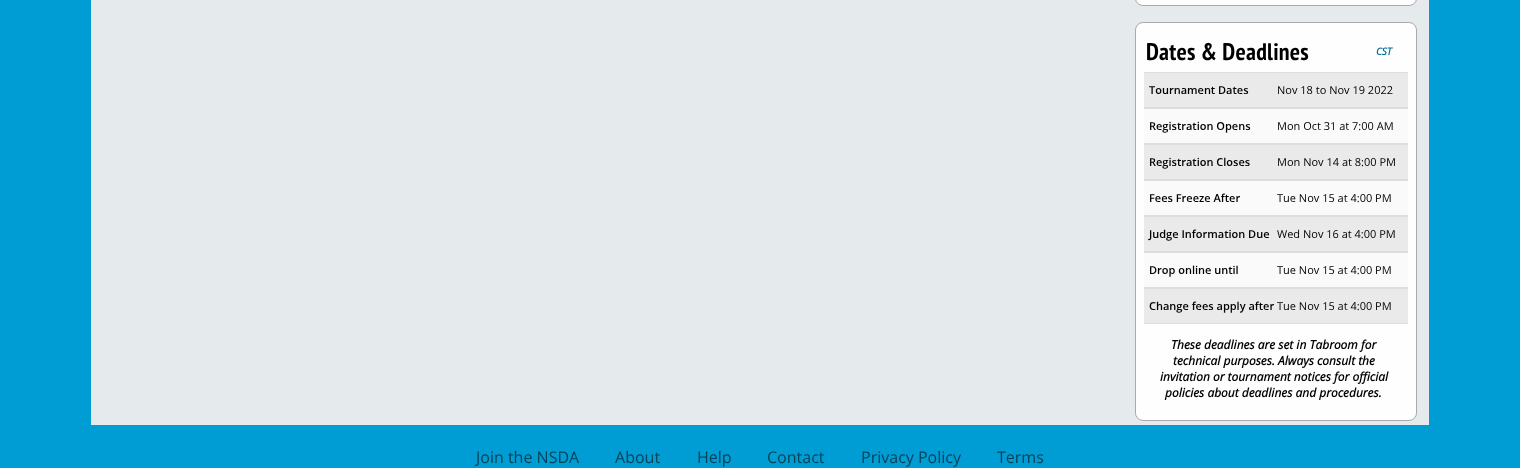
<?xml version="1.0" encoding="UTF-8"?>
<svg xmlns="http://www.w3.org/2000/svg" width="1520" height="468">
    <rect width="100%" height="100%" fill="#009CD4"/>
    <rect x="91" y="0" width="1338" height="425" fill="#E5EBED"/>
    <rect x="1135.5" y="-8.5" width="281" height="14" rx="7.5" fill="#FEFEFE" stroke="#AAAAAA"/>
    <rect x="1135.5" y="22.5" width="281" height="398" rx="7.5" fill="#FEFEFE" stroke="#AAAAAA"/>
    <text x="1146" y="60" font-family="PT Sans Narrow" font-size="24" font-weight="700" letter-spacing="0.25" fill="#000000">Dates &amp; Deadlines</text>
    <text x="1376" y="55" font-family="Open Sans" font-size="10" font-weight="700" font-style="italic" fill="#016F94">CST</text>
    <rect x="1144" y="73" width="264" height="34" fill="#EAEAEA"/>
    <rect x="1144" y="72" width="264" height="1" fill="#DDDDDD"/>
    <rect x="1144" y="107" width="264" height="2" fill="#DDDDDD"/>
    <text x="1149" y="94" font-family="Open Sans" font-size="11" font-weight="600" fill="#000000">Tournament Dates</text>
    <text x="1277" y="94" font-family="Open Sans" font-size="11" fill="#000000">Nov 18 to Nov 19 2022</text>
    <rect x="1144" y="109" width="264" height="34" fill="#FAFAFA"/>
    <rect x="1144" y="143" width="264" height="2" fill="#DDDDDD"/>
    <text x="1149" y="130" font-family="Open Sans" font-size="11" font-weight="600" fill="#000000">Registration Opens</text>
    <text x="1277" y="130" font-family="Open Sans" font-size="11" fill="#000000">Mon Oct 31 at 7:00 AM</text>
    <rect x="1144" y="145" width="264" height="34" fill="#EAEAEA"/>
    <rect x="1144" y="179" width="264" height="2" fill="#DDDDDD"/>
    <text x="1149" y="166" font-family="Open Sans" font-size="11" font-weight="600" fill="#000000">Registration Closes</text>
    <text x="1277" y="166" font-family="Open Sans" font-size="11" fill="#000000">Mon Nov 14 at 8:00 PM</text>
    <rect x="1144" y="181" width="264" height="34" fill="#FAFAFA"/>
    <rect x="1144" y="215" width="264" height="2" fill="#DDDDDD"/>
    <text x="1149" y="202" font-family="Open Sans" font-size="11" font-weight="600" fill="#000000">Fees Freeze After</text>
    <text x="1277" y="202" font-family="Open Sans" font-size="11" fill="#000000">Tue Nov 15 at 4:00 PM</text>
    <rect x="1144" y="217" width="264" height="34" fill="#EAEAEA"/>
    <rect x="1144" y="251" width="264" height="2" fill="#DDDDDD"/>
    <text x="1149" y="238" font-family="Open Sans" font-size="11" font-weight="600" fill="#000000">Judge Information Due</text>
    <text x="1277" y="238" font-family="Open Sans" font-size="11" fill="#000000">Wed Nov 16 at 4:00 PM</text>
    <rect x="1144" y="253" width="264" height="34" fill="#FAFAFA"/>
    <rect x="1144" y="287" width="264" height="2" fill="#DDDDDD"/>
    <text x="1149" y="274" font-family="Open Sans" font-size="11" font-weight="600" fill="#000000">Drop online until</text>
    <text x="1277" y="274" font-family="Open Sans" font-size="11" fill="#000000">Tue Nov 15 at 4:00 PM</text>
    <rect x="1144" y="289" width="264" height="34" fill="#EAEAEA"/>
    <rect x="1144" y="323" width="264" height="1" fill="#DDDDDD"/>
    <text x="1149" y="310" font-family="Open Sans" font-size="11" font-weight="600" fill="#000000">Change fees apply after</text>
    <text x="1277" y="310" font-family="Open Sans" font-size="11" fill="#000000">Tue Nov 15 at 4:00 PM</text>
    <text x="1171" y="349" font-family="Open Sans" font-size="12" font-weight="700" font-style="italic" fill="#000000">These deadlines are set in Tabroom for</text>
    <text x="1173" y="365" font-family="Open Sans" font-size="12" font-weight="700" font-style="italic" fill="#000000">technical purposes. Always consult the</text>
    <text x="1160" y="381" font-family="Open Sans" font-size="12" font-weight="700" font-style="italic" fill="#000000">invitation or tournament notices for official</text>
    <text x="1165" y="397" font-family="Open Sans" font-size="12" font-weight="700" font-style="italic" fill="#000000">policies about deadlines and procedures.</text>
    <text x="476" y="463" font-family="Open Sans" font-size="16" fill="#004359">Join the NSDA</text>
    <text x="615" y="463" font-family="Open Sans" font-size="16" fill="#004359">About</text>
    <text x="697" y="463" font-family="Open Sans" font-size="16" fill="#004359">Help</text>
    <text x="767" y="463" font-family="Open Sans" font-size="16" fill="#004359">Contact</text>
    <text x="861" y="463" font-family="Open Sans" font-size="16" fill="#004359">Privacy Policy</text>
    <text x="997" y="463" font-family="Open Sans" font-size="16" fill="#004359">Terms</text>
</svg>
